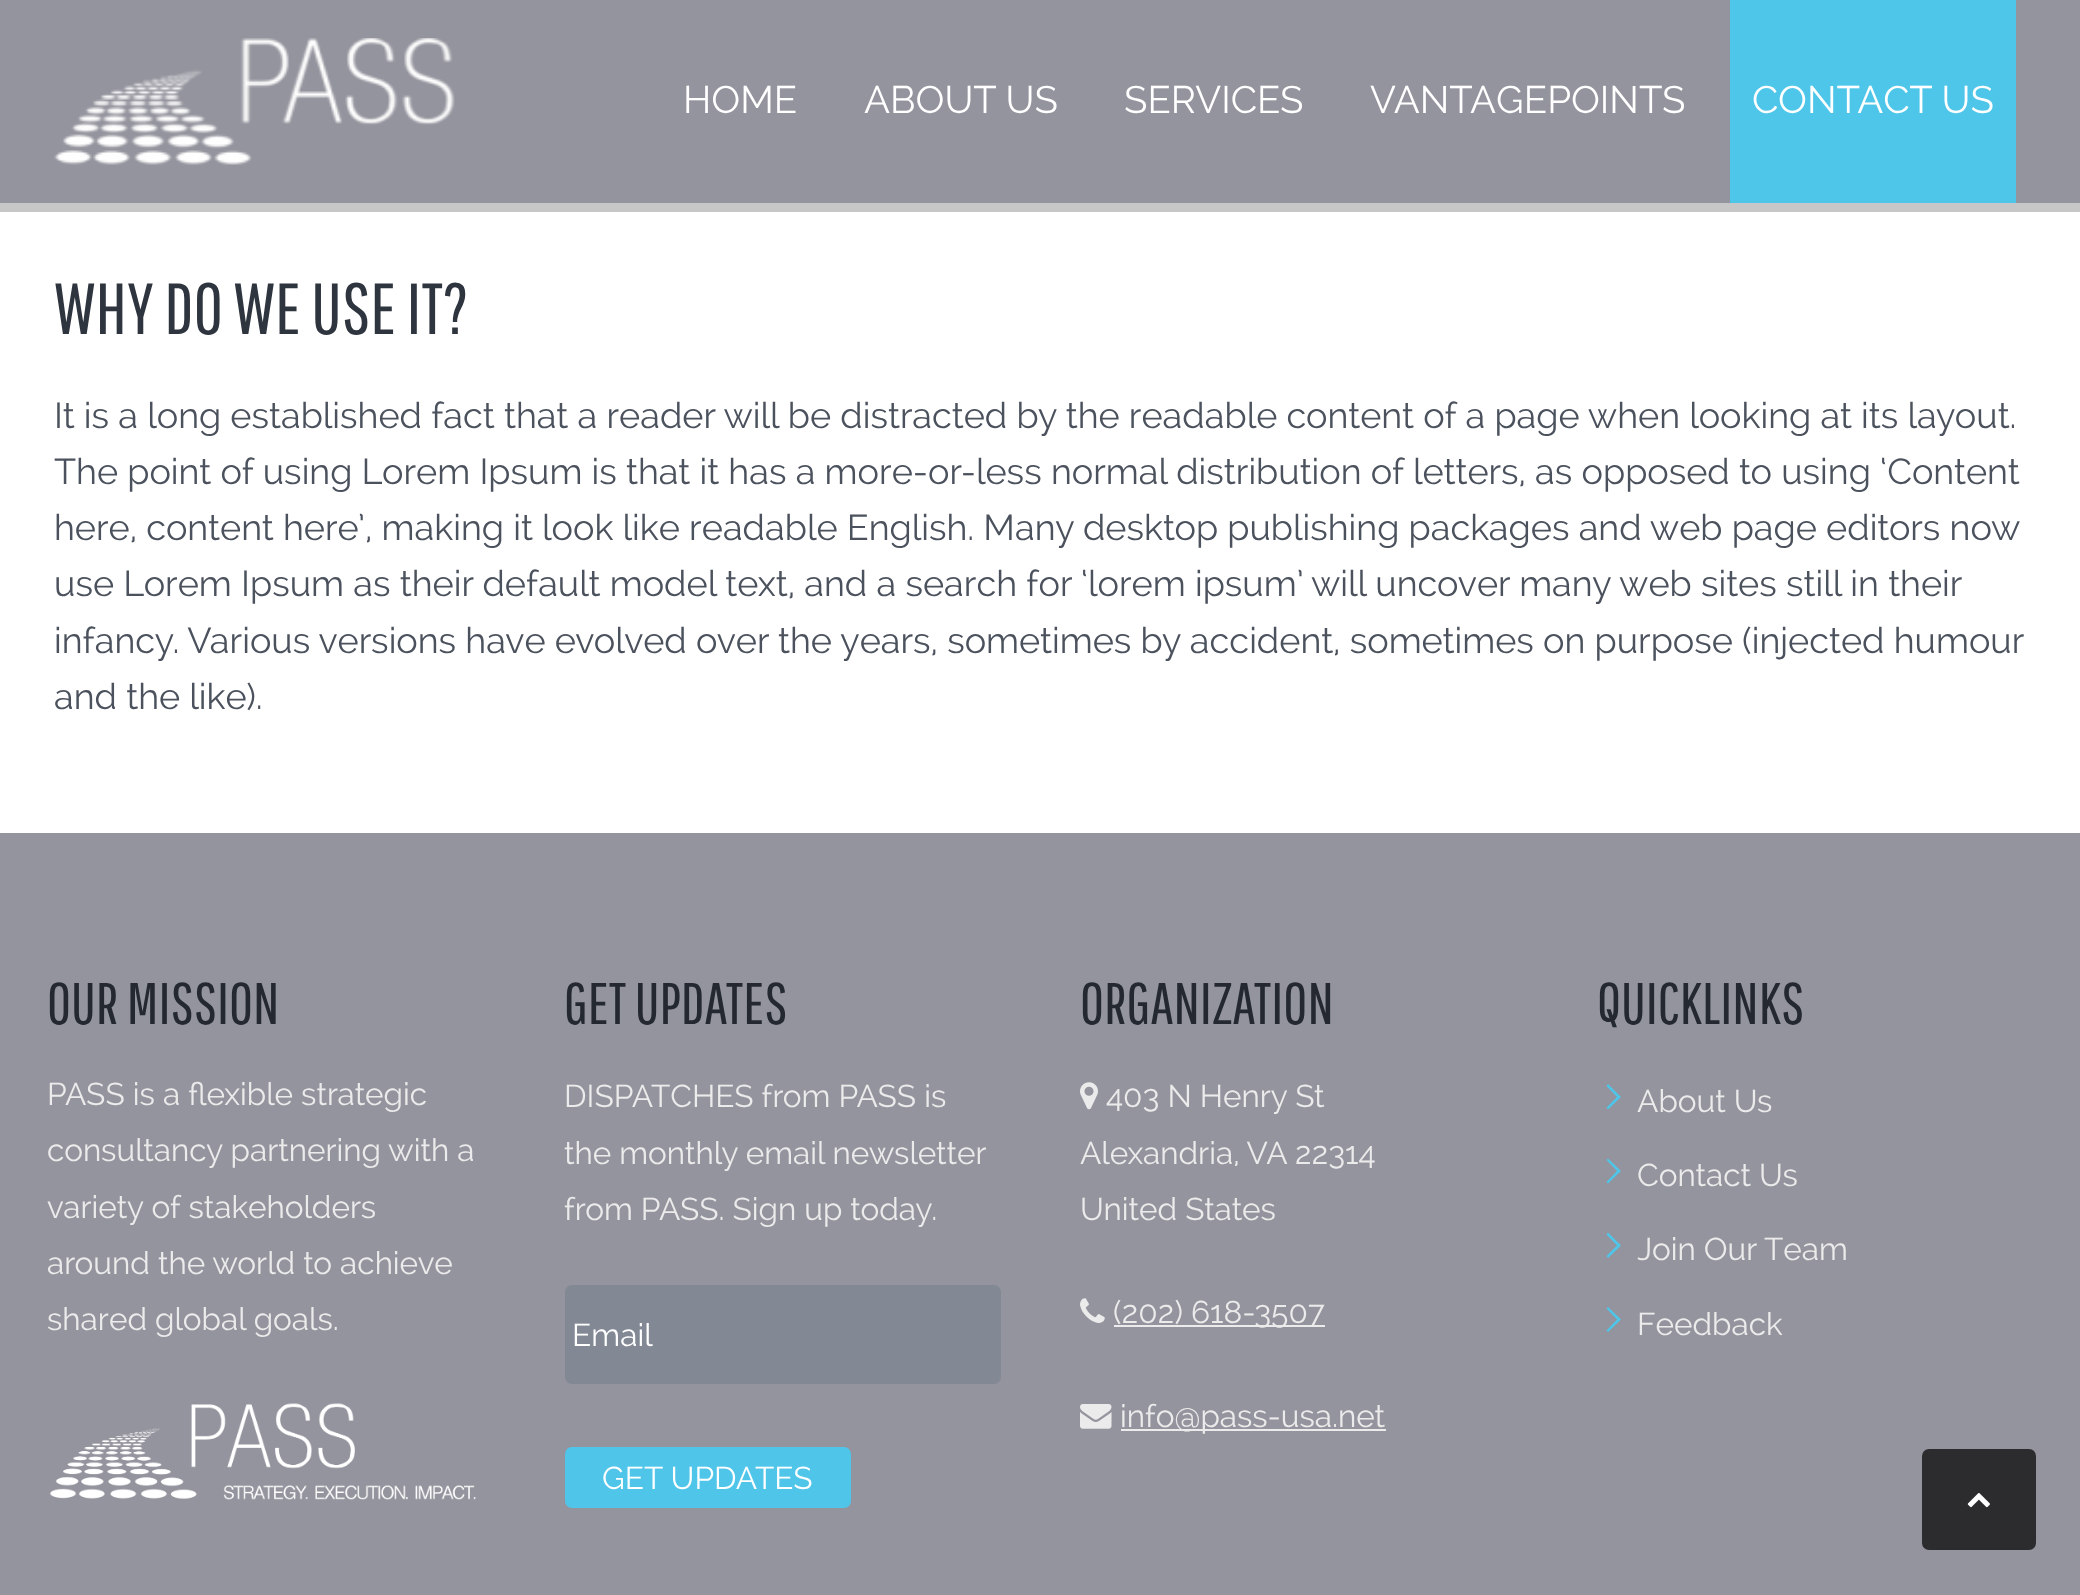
<?xml version="1.0" encoding="UTF-8"?>
<svg xmlns="http://www.w3.org/2000/svg" width="2080" height="1595">
    <rect width="100%" height="100%" fill="#FFFFFF"/>
    <rect x="0" y="203" width="2080" height="9" fill="#C7C7C7"/>
    <rect x="0" y="0" width="2080" height="203" fill="#94949E"/>
    <image x="54" y="38" width="401" height="127" href="img_01.png"/>
    <text x="683" y="113" font-family="Raleway" font-size="38.25" fill="#FFFFFF">HOME</text>
    <text x="864" y="113" font-family="Raleway" font-size="38.25" fill="#FFFFFF">ABOUT US</text>
    <text x="1124" y="113" font-family="Raleway" font-size="38.25" fill="#FFFFFF">SERVICES</text>
    <text x="1370" y="113" font-family="Raleway" font-size="38.25" fill="#FFFFFF">VANTAGEPOINTS</text>
    <rect x="1730" y="0" width="286" height="203" fill="#4EC6E9"/>
    <text x="1752" y="113" font-family="Raleway" font-size="38.25" fill="#FFFFFF">CONTACT US</text>
    <text x="54" y="334" font-family="Pathway Gothic One" font-size="72" fill="#2F353F">WHY DO WE USE IT?</text>
    <text font-family="Raleway" font-size="36" fill="#4B525D">
        <tspan x="54" y="428">It is a long established fact that a reader will be distracted by the readable content of a page when looking at its layout.</tspan>
        <tspan x="54" y="484">The point of using Lorem Ipsum is that it has a more-or-less normal distribution of letters, as opposed to using ‘Content</tspan>
        <tspan x="54" y="540">here, content here’, making it look like readable English. Many desktop publishing packages and web page editors now</tspan>
        <tspan x="54" y="596">use Lorem Ipsum as their default model text, and a search for ‘lorem ipsum’ will uncover many web sites still in their</tspan>
        <tspan x="54" y="653">infancy. Various versions have evolved over the years, sometimes by accident, sometimes on purpose (injected humour</tspan>
        <tspan x="54" y="709">and the like).</tspan>
    </text>
    <rect x="0" y="833" width="2080" height="762" fill="#94949E"/>
    <text x="47" y="1024" font-family="Pathway Gothic One" font-size="58.5" fill="#242931">OUR MISSION</text>
    <text font-family="Raleway" font-size="31.5" fill="#EBEBEB">
        <tspan x="47" y="1105">PASS is a flexible strategic</tspan>
        <tspan x="47" y="1161">consultancy partnering with a</tspan>
        <tspan x="47" y="1218">variety of stakeholders</tspan>
        <tspan x="47" y="1274">around the world to achieve</tspan>
        <tspan x="47" y="1330">shared global goals.</tspan>
    </text>
    <image x="49" y="1403" width="427" height="97" href="img_02.png"/>
    <text x="564" y="1024" font-family="Pathway Gothic One" font-size="58.5" fill="#242931">GET UPDATES</text>
    <text font-family="Raleway" font-size="31.5" fill="#EBEBEB">
        <tspan x="564" y="1107">DISPATCHES from PASS is</tspan>
        <tspan x="564" y="1164">the monthly email newsletter</tspan>
        <tspan x="564" y="1220">from PASS. Sign up today.</tspan>
    </text>
    <rect x="565" y="1285" width="436" height="99" rx="7" fill="#828995"/>
    <text x="572" y="1346" font-family="Raleway" font-size="31.5" fill="#FFFFFF">Email</text>
    <rect x="565" y="1447" width="286" height="61" rx="7" fill="#4EC5E9"/>
    <text x="602" y="1489" font-family="Raleway" font-size="31.5" fill="#FFFFFF">GET UPDATES</text>
    <text x="1080" y="1024" font-family="Pathway Gothic One" font-size="58.5" fill="#242931">ORGANIZATION</text>
    <image x="1080" y="1082" width="18" height="28" href="img_03.png"/>
    <text x="1106" y="1107" font-family="Raleway" font-size="31.5" fill="#EBEBEB">403 N Henry St</text>
    <text font-family="Raleway" font-size="31.5" fill="#EBEBEB">
        <tspan x="1080" y="1164">Alexandria, VA 22314</tspan>
        <tspan x="1080" y="1220">United States</tspan>
    </text>
    <image x="1080" y="1298" width="25" height="25" href="img_04.png"/>
    <rect x="1114" y="1325" width="211" height="2" fill="#EBEBEB"/>
    <text x="1113" y="1323" font-family="Raleway" font-size="31.5" fill="#EBEBEB">(202) 618-3507</text>
    <image x="1080" y="1404" width="32" height="25" href="img_05.png"/>
    <rect x="1121" y="1429" width="265" height="2" fill="#EBEBEB"/>
    <text x="1120" y="1427" font-family="Raleway" font-size="31.5" fill="#EBEBEB">info@pass-usa.net</text>
    <text x="1597" y="1024" font-family="Pathway Gothic One" font-size="58.5" fill="#242931">QUICKLINKS</text>
    <path d="M 1606.5 1107.5 L 1617 1097 L 1606.5 1086 L 1608 1084 L 1621 1097 L 1608 1109.5 Z" fill="#4EC6E9"/>
    <text x="1637" y="1112" font-family="Raleway" font-size="31.5" fill="#EBEBEB">About Us</text>
    <path d="M 1606.5 1182 L 1617 1171 L 1606.5 1160 L 1608 1158.5 L 1621 1171 L 1608 1183.5 Z" fill="#4EC6E9"/>
    <text x="1637" y="1186" font-family="Raleway" font-size="31.5" fill="#EBEBEB">Contact Us</text>
    <path d="M 1606.5 1256 L 1617 1245.5 L 1606.5 1234.5 L 1608 1232.5 L 1621 1245.5 L 1608 1258 Z" fill="#4EC6E9"/>
    <text x="1637" y="1260" font-family="Raleway" font-size="31.5" fill="#EBEBEB">Join Our Team</text>
    <path d="M 1606.5 1330.5 L 1617 1319.5 L 1606.5 1308.5 L 1608 1307 L 1621 1319.5 L 1608 1332 Z" fill="#4EC6E9"/>
    <text x="1637" y="1335" font-family="Raleway" font-size="31.5" fill="#EBEBEB">Feedback</text>
    <rect x="1922" y="1449" width="114" height="101" rx="7" fill="#2C2C2F"/>
    <image x="1967" y="1493" width="23" height="15" href="img_06.png"/>
</svg>
